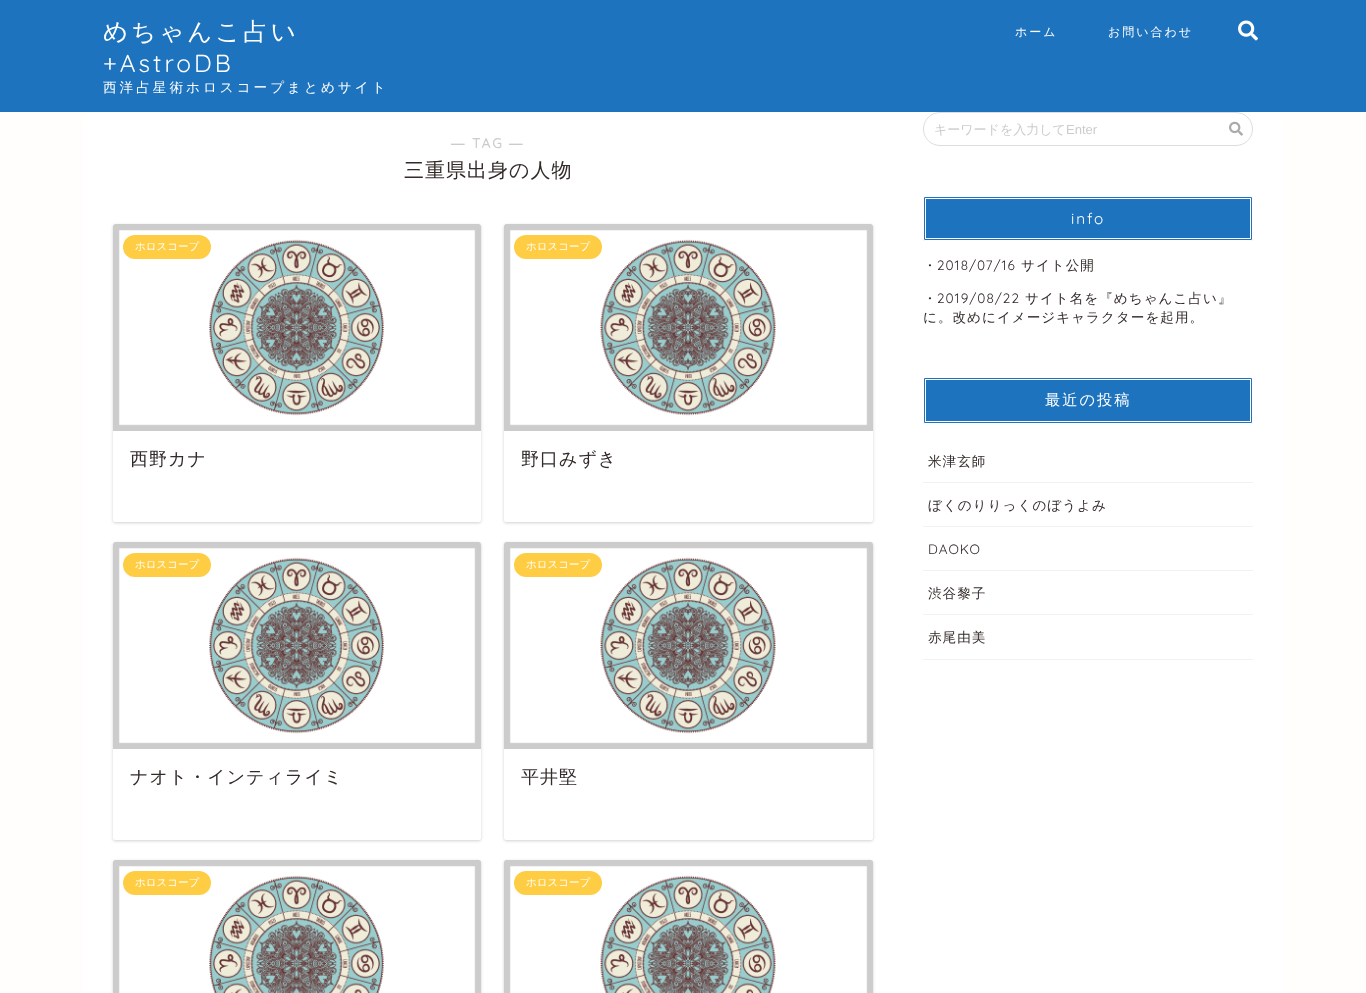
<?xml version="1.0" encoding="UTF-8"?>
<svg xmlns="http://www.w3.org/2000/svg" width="1366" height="993">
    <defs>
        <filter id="blur1" x="-50%" y="-200%" width="200%" height="500%"><feGaussianBlur stdDeviation="1.5"/></filter>
    </defs>
    <rect width="100%" height="100%" fill="#FFFEFC"/>
    <rect x="0" y="0" width="1366" height="112" fill="#1E73BE"/>
    <text x="103" y="40" font-family="WenQuanYi Zen Hei" font-size="24.5" font-weight="500" letter-spacing="3" fill="#FFFFFF">めちゃんこ占い</text>
    <text x="103" y="72" font-family="Quicksand" font-size="24.5" font-weight="300" letter-spacing="3" fill="#FFFFFF">+AstroDB</text>
    <text x="103" y="92" font-family="WenQuanYi Zen Hei" font-size="13.6" font-weight="500" letter-spacing="3" fill="#FFFFFF">西洋占星術ホロスコープまとめサイト</text>
    <text x="1015" y="36" font-family="WenQuanYi Zen Hei" font-size="12" font-weight="500" letter-spacing="2" fill="#FFFFFF">ホーム</text>
    <text x="1108" y="36" font-family="WenQuanYi Zen Hei" font-size="12" font-weight="500" letter-spacing="2" fill="#FFFFFF">お問い合わせ</text>
    <image x="1238" y="20" width="20" height="21" href="img_01.png"/>
    <rect x="83" y="112" width="1200" height="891" rx="10" fill="#FFFFFF"/>
    <text x="451" y="148" font-family="Liberation Sans" font-size="13.6" font-weight="700" letter-spacing="2" fill="#CCCCCC">―</text>
    <text x="472" y="148" font-family="Quicksand" font-size="13.6" font-weight="700" letter-spacing="2" fill="#CCCCCC">TAG</text>
    <text x="509" y="148" font-family="Liberation Sans" font-size="13.6" font-weight="700" letter-spacing="2" fill="#CCCCCC">―</text>
    <text x="404" y="177" font-family="WenQuanYi Zen Hei" font-size="20" font-weight="500" letter-spacing="1" fill="#332B29">三重県出身の人物</text>
    <rect x="113" y="225" width="368" height="298" rx="2" fill="#000000" fill-opacity="0.18" filter="url(#blur1)"/>
    <rect x="113" y="224" width="368" height="298" rx="2" fill="#FFFFFF"/>
    <image x="113" y="224" width="368" height="207" href="img_02.png"/>
    <rect x="123" y="235" width="88" height="24" rx="12" fill="#FFCD44"/>
    <text x="135" y="250" font-family="WenQuanYi Zen Hei" font-size="10.5" font-weight="500" fill="#FFFFFF">ホロスコープ</text>
    <text x="130" y="465" font-family="WenQuanYi Zen Hei" font-size="18" font-weight="500" letter-spacing="1" fill="#332B29">西野カナ</text>
    <rect x="504" y="225" width="369" height="298" rx="2" fill="#000000" fill-opacity="0.18" filter="url(#blur1)"/>
    <rect x="504" y="224" width="369" height="298" rx="2" fill="#FFFFFF"/>
    <image x="504" y="224" width="369" height="207" href="img_03.png"/>
    <rect x="514" y="235" width="88" height="24" rx="12" fill="#FFCD44"/>
    <text x="526" y="250" font-family="WenQuanYi Zen Hei" font-size="10.5" font-weight="500" fill="#FFFFFF">ホロスコープ</text>
    <text x="521" y="465" font-family="WenQuanYi Zen Hei" font-size="18" font-weight="500" letter-spacing="1" fill="#332B29">野口みずき</text>
    <rect x="113" y="543" width="368" height="298" rx="2" fill="#000000" fill-opacity="0.18" filter="url(#blur1)"/>
    <rect x="113" y="542" width="368" height="298" rx="2" fill="#FFFFFF"/>
    <image x="113" y="542" width="368" height="207" href="img_02.png"/>
    <rect x="123" y="553" width="88" height="24" rx="12" fill="#FFCD44"/>
    <text x="135" y="568" font-family="WenQuanYi Zen Hei" font-size="10.5" font-weight="500" fill="#FFFFFF">ホロスコープ</text>
    <text x="130" y="783" font-family="WenQuanYi Zen Hei" font-size="18" font-weight="500" letter-spacing="1" fill="#332B29">ナオト・インティライミ</text>
    <rect x="504" y="543" width="369" height="298" rx="2" fill="#000000" fill-opacity="0.18" filter="url(#blur1)"/>
    <rect x="504" y="542" width="369" height="298" rx="2" fill="#FFFFFF"/>
    <image x="504" y="542" width="369" height="207" href="img_03.png"/>
    <rect x="514" y="553" width="88" height="24" rx="12" fill="#FFCD44"/>
    <text x="526" y="568" font-family="WenQuanYi Zen Hei" font-size="10.5" font-weight="500" fill="#FFFFFF">ホロスコープ</text>
    <text x="521" y="783" font-family="WenQuanYi Zen Hei" font-size="18" font-weight="500" letter-spacing="1" fill="#332B29">平井堅</text>
    <rect x="113" y="861" width="368" height="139" rx="2" fill="#000000" fill-opacity="0.18" filter="url(#blur1)"/>
    <image x="113" y="860" width="368" height="133" href="img_04.png"/>
    <rect x="123" y="871" width="88" height="24" rx="12" fill="#FFCD44"/>
    <text x="135" y="886" font-family="WenQuanYi Zen Hei" font-size="10.5" font-weight="500" fill="#FFFFFF">ホロスコープ</text>
    <rect x="504" y="861" width="369" height="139" rx="2" fill="#000000" fill-opacity="0.18" filter="url(#blur1)"/>
    <image x="504" y="860" width="369" height="133" href="img_05.png"/>
    <rect x="514" y="871" width="88" height="24" rx="12" fill="#FFCD44"/>
    <text x="526" y="886" font-family="WenQuanYi Zen Hei" font-size="10.5" font-weight="500" fill="#FFFFFF">ホロスコープ</text>
    <rect x="923.5" y="112.5" width="329" height="33" rx="16.5" fill="none" stroke="#DDDDDD"/>
    <text x="934" y="134" font-family="WenQuanYi Zen Hei" font-size="13" font-weight="500" fill="#CCCCCC">キーワードを入力して</text>
    <text x="1066" y="134" font-family="Liberation Sans" font-size="13" fill="#CCCCCC">Enter</text>
    <image x="1229" y="121" width="14" height="15" href="img_06.png"/>
    <rect x="923.5" y="196.5" width="329" height="44" rx="1.5" fill="#1E73BE" stroke="#FFFFFF"/>
    <rect x="925.5" y="198.5" width="325" height="40" fill="none" stroke="#FFFFFF"/>
    <text x="1071" y="224" font-family="Quicksand" font-size="15.25" font-weight="300" letter-spacing="2" fill="#FFFFFF">info</text>
    <text x="923" y="270" font-family="WenQuanYi Zen Hei" font-size="13.6" font-weight="500" letter-spacing="1" fill="#332B29">・</text>
    <text x="937" y="270" font-family="Quicksand" font-size="13.6" font-weight="300" letter-spacing="1" fill="#332B29">2018/07/16</text>
    <text x="1021" y="270" font-family="WenQuanYi Zen Hei" font-size="13.6" font-weight="500" letter-spacing="1" fill="#332B29">サイト公開</text>
    <text x="923" y="303" font-family="WenQuanYi Zen Hei" font-size="13.6" font-weight="500" letter-spacing="1" fill="#332B29">・</text>
    <text x="937" y="303" font-family="Quicksand" font-size="13.6" font-weight="300" letter-spacing="1" fill="#332B29">2019/08/22</text>
    <text x="1025" y="303" font-family="WenQuanYi Zen Hei" font-size="13.6" font-weight="500" letter-spacing="1" fill="#332B29">サイト名を『めちゃんこ占い』</text>
    <text x="923" y="322" font-family="WenQuanYi Zen Hei" font-size="13.6" font-weight="500" letter-spacing="1" fill="#332B29">に。改めにイメージキャラクターを起用。</text>
    <rect x="923.5" y="377.5" width="329" height="46" rx="1.5" fill="#1E73BE" stroke="#FFFFFF"/>
    <rect x="925.5" y="379.5" width="325" height="42" fill="none" stroke="#FFFFFF"/>
    <text x="1045" y="405" font-family="WenQuanYi Zen Hei" font-size="15.25" font-weight="500" letter-spacing="2" fill="#FFFFFF">最近の投稿</text>
    <rect x="923" y="482" width="330" height="1" fill="#F2F2F2"/>
    <text x="928" y="466" font-family="WenQuanYi Zen Hei" font-size="13.6" font-weight="500" letter-spacing="1" fill="#332B29">米津玄師</text>
    <rect x="923" y="526" width="330" height="1" fill="#F2F2F2"/>
    <text x="928" y="510" font-family="WenQuanYi Zen Hei" font-size="13.6" font-weight="500" letter-spacing="1" fill="#332B29">ぼくのりりっくのぼうよみ</text>
    <rect x="923" y="570" width="330" height="1" fill="#F2F2F2"/>
    <text x="928" y="554" font-family="Quicksand" font-size="13.6" font-weight="300" letter-spacing="1" fill="#332B29">DAOKO</text>
    <rect x="923" y="614" width="330" height="1" fill="#F2F2F2"/>
    <text x="928" y="598" font-family="WenQuanYi Zen Hei" font-size="13.6" font-weight="500" letter-spacing="1" fill="#332B29">渋谷黎子</text>
    <rect x="923" y="659" width="330" height="1" fill="#F2F2F2"/>
    <text x="928" y="642" font-family="WenQuanYi Zen Hei" font-size="13.6" font-weight="500" letter-spacing="1" fill="#332B29">赤尾由美</text>
</svg>
